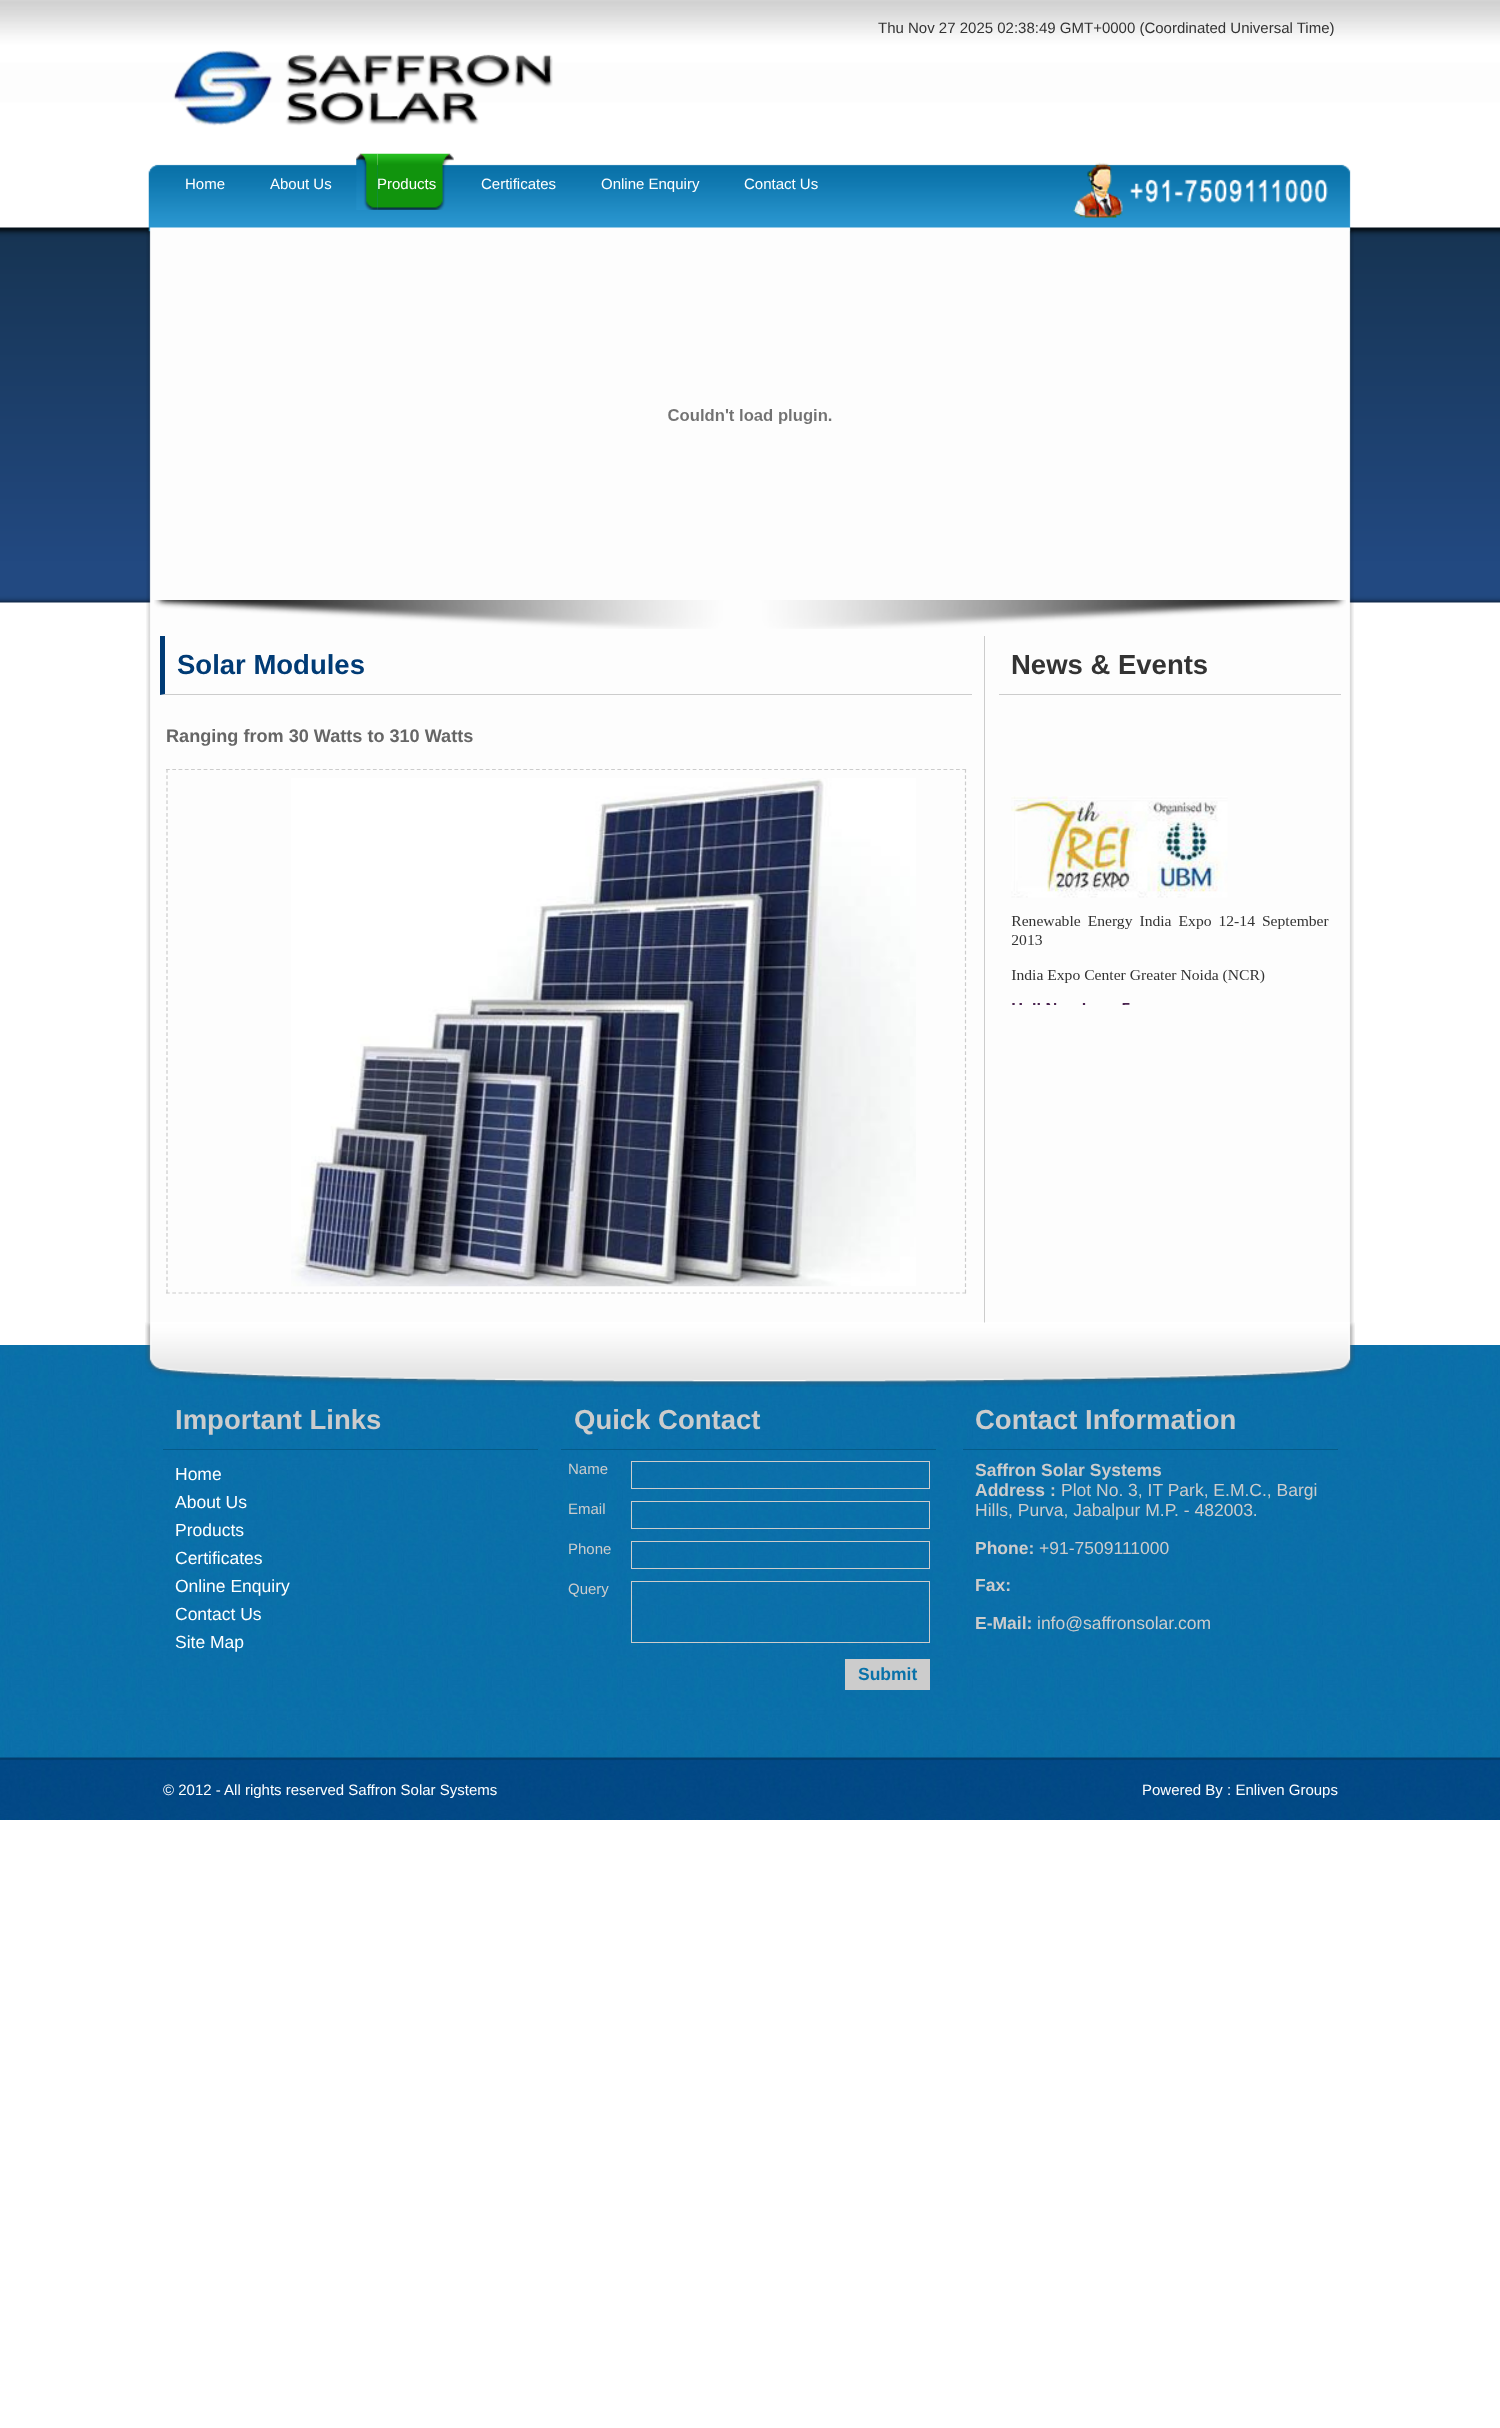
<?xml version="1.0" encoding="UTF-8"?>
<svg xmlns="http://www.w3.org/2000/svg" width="1500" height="2428">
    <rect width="100%" height="100%" fill="#FFFFFF"/>
    <image x="0" y="0" width="1500" height="603" href="img_01.png"/>
    <image x="0" y="1345" width="1500" height="413" href="img_02.png"/>
    <image x="0" y="1757" width="1500" height="63" href="img_03.png"/>
    <text x="878" y="33" font-family="Liberation Sans" font-size="15" fill="#333333">Thu Nov 27 2025 02:38:49 GMT+0000 (Coordinated Universal Time)</text>
    <image x="173" y="50" width="380" height="76" href="img_04.png"/>
    <image x="148" y="164" width="1203" height="68" href="img_05.png"/>
    <text x="185" y="189" font-family="Liberation Sans" font-size="15" fill="#FFFFFF">Home</text>
    <text x="270" y="189" font-family="Liberation Sans" font-size="15" fill="#FFFFFF">About Us</text>
    <image x="356" y="153" width="22" height="57" href="img_06.png"/>
    <image x="377" y="153" width="77" height="57" href="img_07.png"/>
    <image x="1072" y="162" width="256" height="56" href="img_08.png"/>
    <text x="377" y="189" font-family="Liberation Sans" font-size="15" fill="#FFFFFF">Products</text>
    <text x="481" y="189" font-family="Liberation Sans" font-size="15" fill="#FFFFFF">Certificates</text>
    <text x="601" y="189" font-family="Liberation Sans" font-size="15" fill="#FFFFFF">Online Enquiry</text>
    <text x="744" y="189" font-family="Liberation Sans" font-size="15" fill="#FFFFFF">Contact Us</text>
    <image x="146" y="227" width="1208" height="410" href="img_09.png"/>
    <image x="154" y="600" width="1192" height="29" href="img_10.png"/>
    <image x="668" y="409" width="164" height="15" href="img_11.png"/>
    <image x="146" y="636" width="1208" height="687" href="img_12.png"/>
    <rect x="984" y="636" width="1" height="687" fill="#CCCCCC"/>
    <path d="M 972 695 H 160 L 165 694 H 972 Z" fill="#CCCCCC"/>
    <path d="M 160 695 V 636 H 165 V 694 Z" fill="#003B75"/>
    <text x="177" y="674" font-family="Liberation Sans" font-size="27.5" font-weight="700" fill="#003B75">Solar Modules</text>
    <text x="166" y="742" font-family="Liberation Sans" font-size="18.1" font-weight="700" fill="#666666">Ranging from 30 Watts to 310 Watts</text>
    <path d="M 166 769.5 H 966" fill="none" stroke="#CCCCCC" stroke-width="1.2" stroke-dasharray="3.75 2.52"/>
    <path d="M 965.5 769 V 1294" fill="none" stroke="#CCCCCC" stroke-width="1.2" stroke-dasharray="3.75 2.52"/>
    <path d="M 166 1293 H 966" fill="none" stroke="#CCCCCC" stroke-width="1.2" stroke-dasharray="3.75 2.52"/>
    <path d="M 167 769 V 1294" fill="none" stroke="#CCCCCC" stroke-width="1.2" stroke-dasharray="3.75 2.52"/>
    <image x="291" y="778" width="625" height="509" href="img_13.png"/>
    <rect x="999" y="694" width="342" height="1" fill="#CCCCCC"/>
    <text x="1011" y="674" font-family="Liberation Sans" font-size="27.5" font-weight="700" fill="#333333">News &amp; Events</text>
    <image x="1011" y="796" width="318" height="209" href="img_14.png"/>
    <image x="145" y="1322" width="1210" height="65" href="img_15.png"/>
    <rect x="163" y="1449" width="375" height="1" fill="#055B88"/>
    <text x="175" y="1429" font-family="Liberation Sans" font-size="27.5" font-weight="700" fill="#CCCCCC">Important Links</text>
    <text font-family="Liberation Sans" font-size="17.5" fill="#FFFFFF">
        <tspan x="175" y="1480">Home</tspan>
        <tspan x="175" y="1508">About Us</tspan>
        <tspan x="175" y="1536">Products</tspan>
        <tspan x="175" y="1564">Certificates</tspan>
        <tspan x="175" y="1592">Online Enquiry</tspan>
        <tspan x="175" y="1620">Contact Us</tspan>
        <tspan x="175" y="1648">Site Map</tspan>
    </text>
    <rect x="561" y="1449" width="375" height="1" fill="#055B88"/>
    <text x="574" y="1429" font-family="Liberation Sans" font-size="27.5" font-weight="700" fill="#CCCCCC">Quick Contact</text>
    <text x="568" y="1474" font-family="Liberation Sans" font-size="15" fill="#CCCCCC">Name</text>
    <rect x="631.5" y="1461.5" width="298" height="27" fill="none" stroke="#CCCCCC"/>
    <text x="568" y="1514" font-family="Liberation Sans" font-size="15" fill="#CCCCCC">Email</text>
    <rect x="631.5" y="1501.5" width="298" height="27" fill="none" stroke="#CCCCCC"/>
    <text x="568" y="1554" font-family="Liberation Sans" font-size="15" fill="#CCCCCC">Phone</text>
    <rect x="631.5" y="1541.5" width="298" height="27" fill="none" stroke="#CCCCCC"/>
    <text x="568" y="1594" font-family="Liberation Sans" font-size="15" fill="#CCCCCC">Query</text>
    <rect x="631.5" y="1581.5" width="298" height="61" fill="none" stroke="#CCCCCC"/>
    <rect x="845" y="1659" width="85" height="31" fill="#CCCCCC"/>
    <text x="858" y="1680" font-family="Liberation Sans" font-size="17.5" font-weight="700" fill="#0972A9">Submit</text>
    <rect x="963" y="1449" width="375" height="1" fill="#055B88"/>
    <text x="975" y="1429" font-family="Liberation Sans" font-size="27.5" font-weight="700" fill="#CCCCCC">Contact Information</text>
    <text font-family="Liberation Sans" font-size="17.5" font-weight="700" fill="#CCCCCC">
        <tspan x="975" y="1476">Saffron Solar Systems</tspan>
        <tspan x="975" y="1496">Address :</tspan>
    </text>
    <text x="1061" y="1496" font-family="Liberation Sans" font-size="17.5" fill="#CCCCCC">Plot No. 3, IT Park, E.M.C., Bargi</text>
    <text x="975" y="1516" font-family="Liberation Sans" font-size="17.5" fill="#CCCCCC">Hills, Purva, Jabalpur M.P. - 482003.</text>
    <text x="975" y="1554" font-family="Liberation Sans" font-size="17.5" font-weight="700" fill="#CCCCCC">Phone:</text>
    <text x="1039" y="1554" font-family="Liberation Sans" font-size="17.5" fill="#CCCCCC">+91-7509111000</text>
    <text x="975" y="1591" font-family="Liberation Sans" font-size="17.5" font-weight="700" fill="#CCCCCC">Fax:</text>
    <text x="975" y="1629" font-family="Liberation Sans" font-size="17.5" font-weight="700" fill="#CCCCCC">E-Mail:</text>
    <text x="1037" y="1629" font-family="Liberation Sans" font-size="17.5" fill="#CCCCCC">info@saffronsolar.com</text>
    <text x="163" y="1795" font-family="Liberation Sans" font-size="15" fill="#FFFFFF">© 2012 - All rights reserved Saffron Solar Systems</text>
    <text x="1142" y="1795" font-family="Liberation Sans" font-size="15" fill="#FFFFFF">Powered By : Enliven Groups</text>
</svg>
